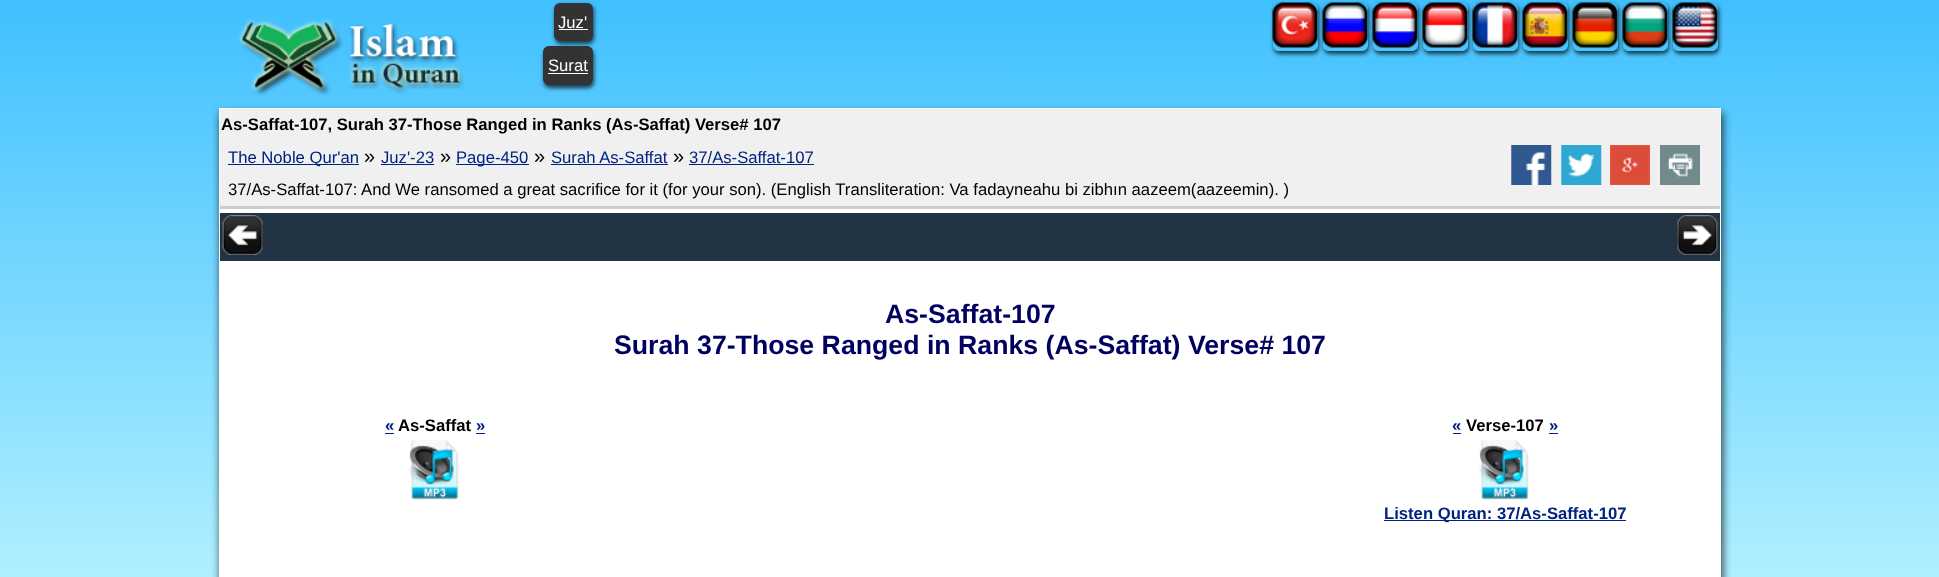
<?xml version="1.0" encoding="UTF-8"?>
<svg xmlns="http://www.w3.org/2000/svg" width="1939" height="577">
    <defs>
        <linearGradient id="g1" gradientUnits="userSpaceOnUse" x1="970" y1="0" x2="970" y2="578"><stop offset="0" stop-color="#40C0FF"/><stop offset="1" stop-color="#B0F0FF"/></linearGradient>
        <filter id="blur1" x="-50%" y="-200%" width="200%" height="500%"><feGaussianBlur stdDeviation="2"/></filter>
        <clipPath id="clip1"><path d="M 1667 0 H 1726 V 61 H 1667 Z M 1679 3 H 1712 C 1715.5 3 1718 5.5 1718 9 V 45 C 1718 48.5 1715.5 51 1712 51 H 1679 C 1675.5 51 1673 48.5 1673 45 V 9 C 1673 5.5 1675.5 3 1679 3 Z" clip-rule="evenodd"/></clipPath>
        <clipPath id="clip2"><path d="M 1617 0 H 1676 V 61 H 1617 Z M 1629 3 H 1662 C 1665.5 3 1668 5.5 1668 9 V 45 C 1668 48.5 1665.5 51 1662 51 H 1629 C 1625.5 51 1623 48.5 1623 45 V 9 C 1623 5.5 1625.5 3 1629 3 Z" clip-rule="evenodd"/></clipPath>
        <clipPath id="clip3"><path d="M 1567 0 H 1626 V 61 H 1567 Z M 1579 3 H 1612 C 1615.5 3 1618 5.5 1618 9 V 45 C 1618 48.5 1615.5 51 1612 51 H 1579 C 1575.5 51 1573 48.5 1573 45 V 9 C 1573 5.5 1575.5 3 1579 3 Z" clip-rule="evenodd"/></clipPath>
        <clipPath id="clip4"><path d="M 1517 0 H 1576 V 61 H 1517 Z M 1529 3 H 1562 C 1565.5 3 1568 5.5 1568 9 V 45 C 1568 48.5 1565.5 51 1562 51 H 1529 C 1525.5 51 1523 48.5 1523 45 V 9 C 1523 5.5 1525.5 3 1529 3 Z" clip-rule="evenodd"/></clipPath>
        <clipPath id="clip5"><path d="M 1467 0 H 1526 V 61 H 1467 Z M 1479 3 H 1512 C 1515.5 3 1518 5.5 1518 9 V 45 C 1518 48.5 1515.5 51 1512 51 H 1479 C 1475.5 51 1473 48.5 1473 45 V 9 C 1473 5.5 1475.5 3 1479 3 Z" clip-rule="evenodd"/></clipPath>
        <clipPath id="clip6"><path d="M 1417 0 H 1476 V 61 H 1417 Z M 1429 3 H 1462 C 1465.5 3 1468 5.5 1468 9 V 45 C 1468 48.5 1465.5 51 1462 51 H 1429 C 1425.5 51 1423 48.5 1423 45 V 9 C 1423 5.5 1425.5 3 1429 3 Z" clip-rule="evenodd"/></clipPath>
        <clipPath id="clip7"><path d="M 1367 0 H 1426 V 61 H 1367 Z M 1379 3 H 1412 C 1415.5 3 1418 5.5 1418 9 V 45 C 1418 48.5 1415.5 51 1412 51 H 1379 C 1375.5 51 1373 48.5 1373 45 V 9 C 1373 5.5 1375.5 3 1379 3 Z" clip-rule="evenodd"/></clipPath>
        <clipPath id="clip8"><path d="M 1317 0 H 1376 V 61 H 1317 Z M 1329 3 H 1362 C 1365.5 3 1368 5.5 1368 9 V 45 C 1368 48.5 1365.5 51 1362 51 H 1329 C 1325.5 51 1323 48.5 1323 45 V 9 C 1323 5.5 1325.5 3 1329 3 Z" clip-rule="evenodd"/></clipPath>
        <clipPath id="clip9"><path d="M 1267 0 H 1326 V 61 H 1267 Z M 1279 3 H 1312 C 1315.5 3 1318 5.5 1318 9 V 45 C 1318 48.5 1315.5 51 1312 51 H 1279 C 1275.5 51 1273 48.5 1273 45 V 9 C 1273 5.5 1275.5 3 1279 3 Z" clip-rule="evenodd"/></clipPath>
        <filter id="blur2" x="-50%" y="-200%" width="200%" height="500%"><feGaussianBlur stdDeviation="4.5"/></filter>
    </defs>
    <rect width="100%" height="100%" fill="#FFFFFF"/>
    <rect x="0" y="0" width="1939" height="577" fill="url(#g1)"/>
    <image x="238" y="18" width="226" height="78" href="img_01.png"/>
    <rect x="555" y="5" width="39" height="39" rx="6" fill="#000000" fill-opacity="0.7" filter="url(#blur1)"/>
    <rect x="554" y="3" width="39" height="38" rx="6" fill="#333333"/>
    <text x="558" y="28" font-family="Liberation Sans" font-size="16.67" fill="#FFFFFF">Juz'</text>
    <rect x="559" y="29" width="29" height="1" fill="#FFFFFF"/>
    <rect x="544" y="49" width="50" height="39" rx="6" fill="#000000" fill-opacity="0.7" filter="url(#blur1)"/>
    <rect x="543" y="46" width="50" height="39" rx="6" fill="#333333"/>
    <text x="548" y="71" font-family="Liberation Sans" font-size="16.67" fill="#FFFFFF">Surat</text>
    <rect x="548" y="73" width="40" height="1" fill="#FFFFFF"/>
    <g clip-path="url(#clip1)">
        <rect x="1674" y="5" width="45" height="49" rx="6" fill="#000000" fill-opacity="0.7" filter="url(#blur1)"/>
    </g>
    <image x="1672" y="2" width="46" height="46" href="img_10.png"/>
    <g clip-path="url(#clip2)">
        <rect x="1624" y="5" width="45" height="49" rx="6" fill="#000000" fill-opacity="0.7" filter="url(#blur1)"/>
    </g>
    <image x="1622" y="2" width="46" height="46" href="img_09.png"/>
    <g clip-path="url(#clip3)">
        <rect x="1574" y="5" width="45" height="49" rx="6" fill="#000000" fill-opacity="0.7" filter="url(#blur1)"/>
    </g>
    <image x="1572" y="2" width="46" height="46" href="img_08.png"/>
    <g clip-path="url(#clip4)">
        <rect x="1524" y="5" width="45" height="49" rx="6" fill="#000000" fill-opacity="0.7" filter="url(#blur1)"/>
    </g>
    <image x="1522" y="2" width="46" height="46" href="img_07.png"/>
    <g clip-path="url(#clip5)">
        <rect x="1474" y="5" width="45" height="49" rx="6" fill="#000000" fill-opacity="0.7" filter="url(#blur1)"/>
    </g>
    <image x="1472" y="2" width="46" height="46" href="img_06.png"/>
    <g clip-path="url(#clip6)">
        <rect x="1424" y="5" width="45" height="49" rx="6" fill="#000000" fill-opacity="0.7" filter="url(#blur1)"/>
    </g>
    <image x="1422" y="2" width="46" height="46" href="img_05.png"/>
    <g clip-path="url(#clip7)">
        <rect x="1374" y="5" width="45" height="49" rx="6" fill="#000000" fill-opacity="0.7" filter="url(#blur1)"/>
    </g>
    <image x="1372" y="2" width="46" height="46" href="img_04.png"/>
    <g clip-path="url(#clip8)">
        <rect x="1324" y="5" width="45" height="49" rx="6" fill="#000000" fill-opacity="0.7" filter="url(#blur1)"/>
    </g>
    <image x="1322" y="2" width="46" height="46" href="img_03.png"/>
    <g clip-path="url(#clip9)">
        <rect x="1274" y="5" width="45" height="49" rx="6" fill="#000000" fill-opacity="0.7" filter="url(#blur1)"/>
    </g>
    <image x="1272" y="2" width="46" height="46" href="img_02.png"/>
    <rect x="220" y="113" width="1503" height="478" fill="#000000" fill-opacity="0.7" filter="url(#blur2)"/>
    <rect x="219" y="108" width="1502" height="469" fill="#FFFFFF"/>
    <rect x="220" y="109" width="1500" height="97" fill="#F0F0F0"/>
    <rect x="220" y="206" width="1500" height="3" fill="#CCCCCC"/>
    <text x="221" y="130" font-family="Liberation Sans" font-size="16.67" font-weight="700" fill="#000000">As-Saffat-107, Surah 37-Those Ranged in Ranks (As-Saffat) Verse# 107</text>
    <rect x="228" y="164" width="131" height="1" fill="#002280"/>
    <text x="228" y="163" font-family="Liberation Sans" font-size="16.67" fill="#002280">The Noble Qur'an</text>
    <text x="364" y="163" font-family="Liberation Sans" font-size="20" fill="#000000">»</text>
    <text x="381" y="163" font-family="Liberation Sans" font-size="16.67" fill="#002280">Juz'-23</text>
    <rect x="381" y="164" width="53" height="1" fill="#002280"/>
    <text x="440" y="163" font-family="Liberation Sans" font-size="20" fill="#000000">»</text>
    <rect x="456" y="164" width="73" height="1" fill="#002280"/>
    <text x="456" y="163" font-family="Liberation Sans" font-size="16.67" fill="#002280">Page-450</text>
    <text x="534" y="163" font-family="Liberation Sans" font-size="20" fill="#000000">»</text>
    <text x="551" y="163" font-family="Liberation Sans" font-size="16.67" fill="#002280">Surah As-Saffat</text>
    <rect x="551" y="164" width="117" height="1" fill="#002280"/>
    <text x="673" y="163" font-family="Liberation Sans" font-size="20" fill="#000000">»</text>
    <text x="689" y="163" font-family="Liberation Sans" font-size="16.67" fill="#002280">37/As-Saffat-107</text>
    <rect x="689" y="164" width="125" height="1" fill="#002280"/>
    <image x="1511" y="145" width="41" height="40" href="img_11.png"/>
    <image x="1561" y="145" width="41" height="40" href="img_12.png"/>
    <image x="1610" y="145" width="40" height="40" href="img_13.png"/>
    <image x="1660" y="145" width="40" height="40" href="img_14.png"/>
    <text x="228" y="195" font-family="Liberation Sans" font-size="16.67" fill="#000000">37/As-Saffat-107: And We ransomed a great sacrifice for it (for your son). (English Transliteration: Va fadayneahu bi zibhın aazeem(aazeemin). )</text>
    <rect x="220" y="213" width="1500" height="48" fill="#223344"/>
    <image x="222" y="215" width="41" height="40" href="img_15.png"/>
    <image x="1677" y="215" width="41" height="40" href="img_16.png"/>
    <text x="885" y="323" font-family="Liberation Sans" font-size="26.7" font-weight="700" fill="#000060">As-Saffat-107</text>
    <text x="614" y="354" font-family="Liberation Sans" font-size="26.7" font-weight="700" fill="#000060">Surah 37-Those Ranged in Ranks (As-Saffat) Verse# 107</text>
    <text x="385" y="431" font-family="Liberation Sans" font-size="16.67" font-weight="700" fill="#002280">«</text>
    <rect x="385" y="433" width="9" height="1" fill="#002280"/>
    <text x="398" y="431" font-family="Liberation Sans" font-size="16.67" font-weight="700" fill="#000000">As-Saffat</text>
    <text x="476" y="431" font-family="Liberation Sans" font-size="16.67" font-weight="700" fill="#002280">»</text>
    <rect x="476" y="433" width="9" height="1" fill="#002280"/>
    <image x="409" y="440" width="50" height="60" href="img_17.png"/>
    <text x="1452" y="431" font-family="Liberation Sans" font-size="16.67" font-weight="700" fill="#002280">«</text>
    <rect x="1453" y="433" width="8" height="1" fill="#002280"/>
    <text x="1466" y="431" font-family="Liberation Sans" font-size="16.67" font-weight="700" fill="#000000">Verse-107</text>
    <text x="1549" y="431" font-family="Liberation Sans" font-size="16.67" font-weight="700" fill="#002280">»</text>
    <rect x="1549" y="433" width="9" height="1" fill="#002280"/>
    <image x="1479" y="440" width="50" height="60" href="img_17.png"/>
    <rect x="1384" y="520" width="242" height="1" fill="#002280"/>
    <text x="1384" y="519" font-family="Liberation Sans" font-size="16.67" font-weight="700" fill="#002280">Listen Quran: 37/As-Saffat-107</text>
</svg>
